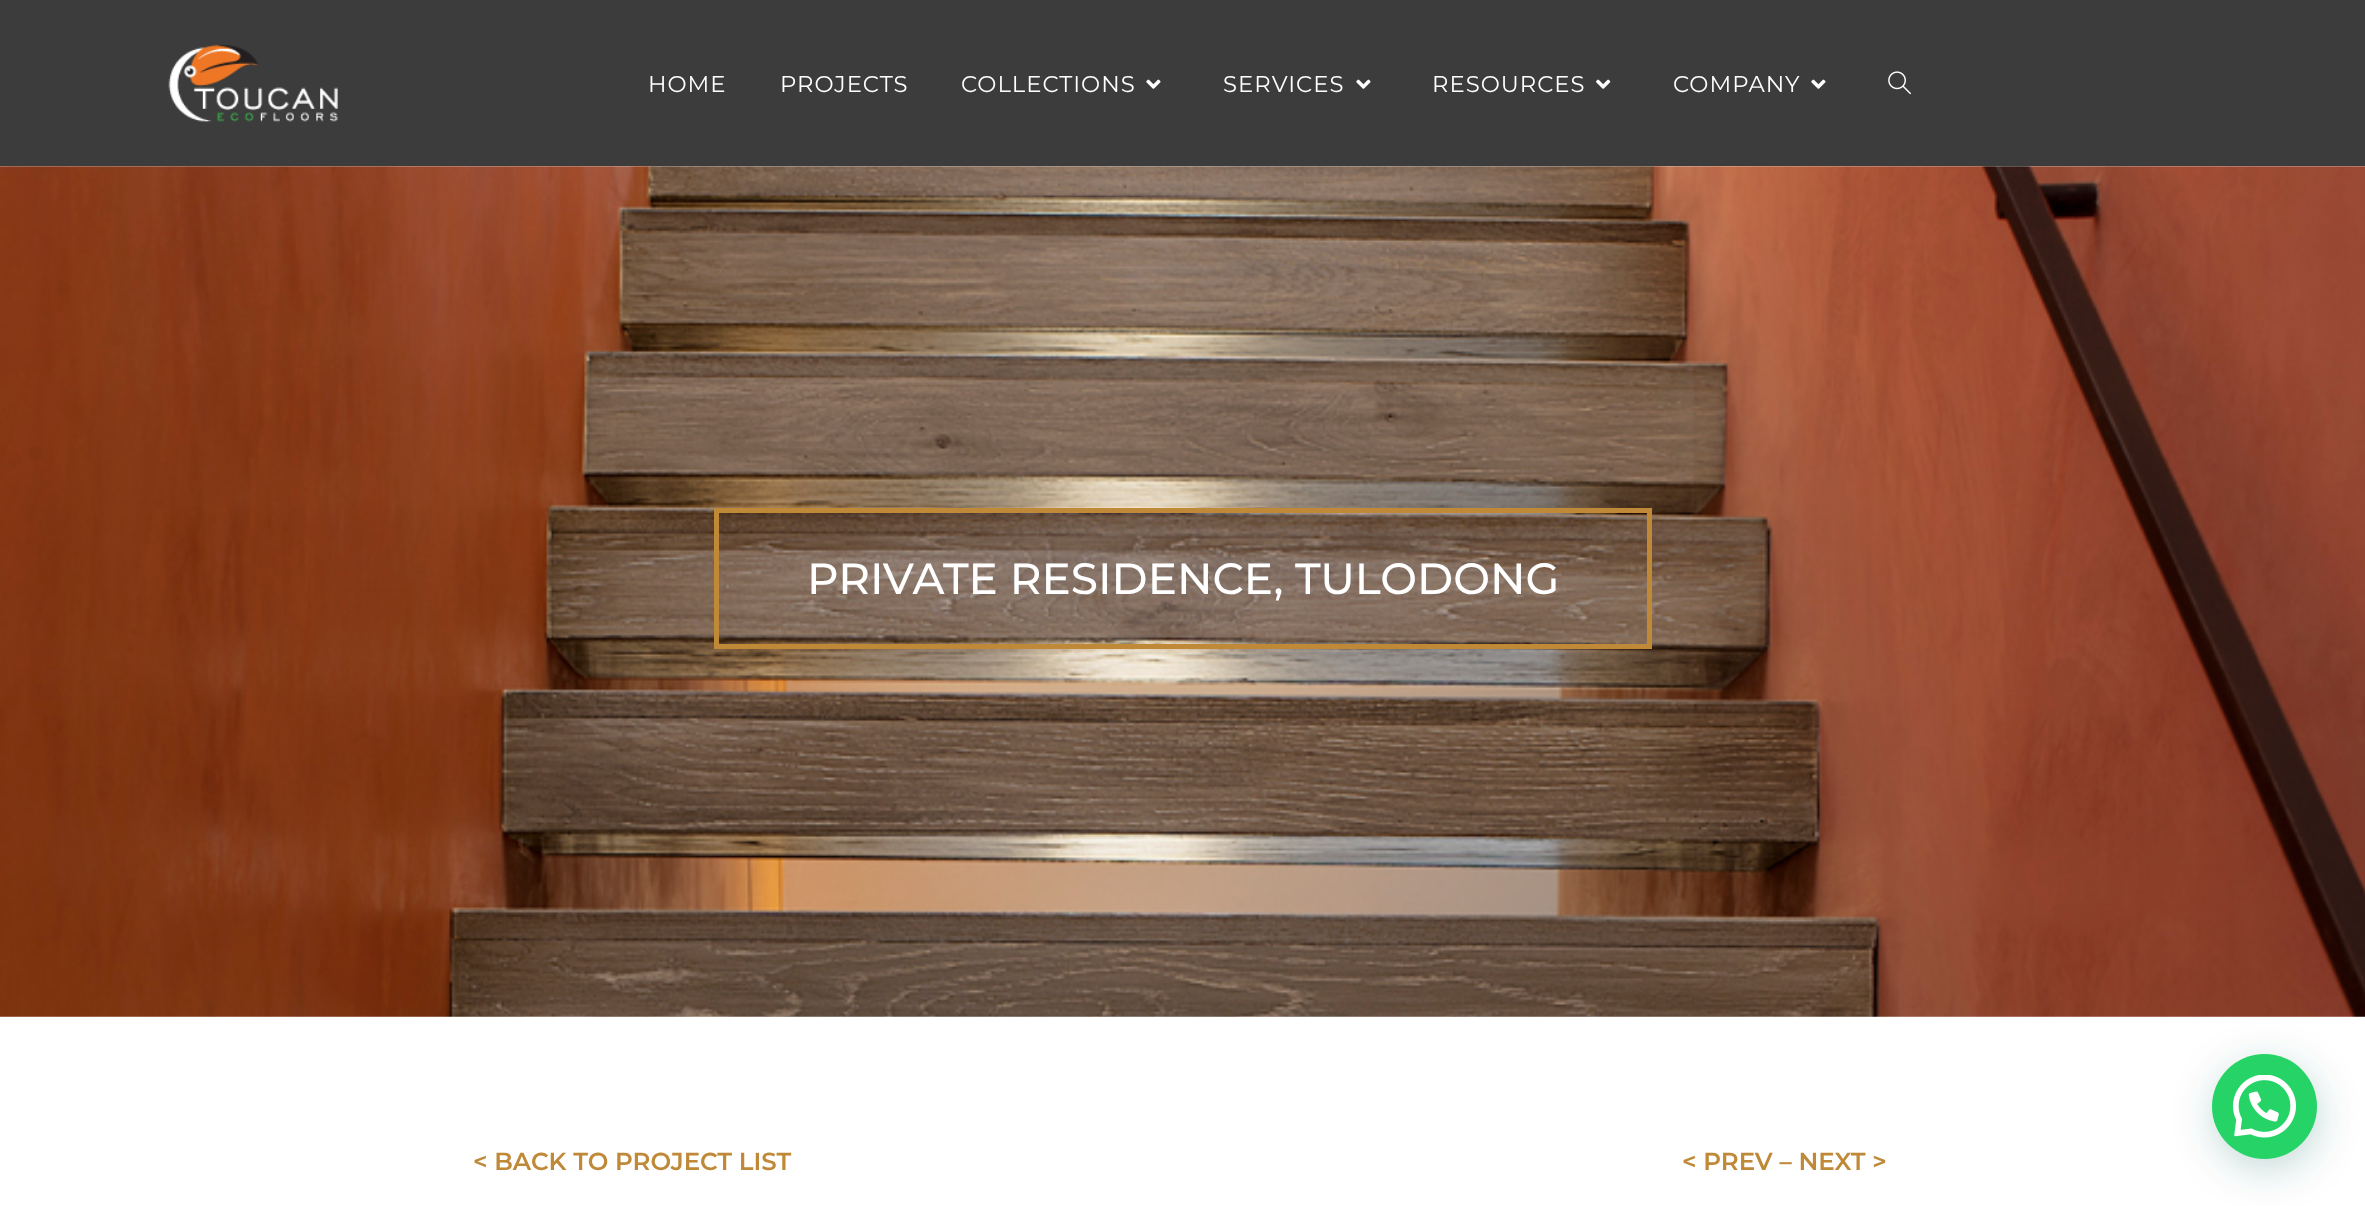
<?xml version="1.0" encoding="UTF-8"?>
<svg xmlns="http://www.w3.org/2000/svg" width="2365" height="1206">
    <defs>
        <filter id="blur1" x="-50%" y="-200%" width="200%" height="500%"><feGaussianBlur stdDeviation="21"/></filter>
    </defs>
    <rect width="100%" height="100%" fill="#FFFFFF"/>
    <rect x="0" y="0" width="2365" height="166" fill="#3C3C3C"/>
    <image x="168" y="44" width="170" height="78" href="img_01.png"/>
    <text x="648" y="92" font-family="Montserrat" font-size="22.75" letter-spacing="1" fill="#FFFFFF">HOME</text>
    <text x="780" y="92" font-family="Montserrat" font-size="22.75" letter-spacing="1" fill="#FFFFFF">PROJECTS</text>
    <text x="961" y="92" font-family="Montserrat" font-size="22.75" letter-spacing="1" fill="#FFFFFF">COLLECTIONS</text>
    <image x="1146" y="79" width="15" height="10" href="img_02.png"/>
    <text x="1223" y="92" font-family="Montserrat" font-size="22.75" letter-spacing="1" fill="#FFFFFF">SERVICES</text>
    <image x="1356" y="79" width="15" height="10" href="img_02.png"/>
    <text x="1432" y="92" font-family="Montserrat" font-size="22.75" letter-spacing="1" fill="#FFFFFF">RESOURCES</text>
    <image x="1596" y="79" width="15" height="10" href="img_03.png"/>
    <text x="1673" y="92" font-family="Montserrat" font-size="22.75" letter-spacing="1" fill="#FFFFFF">COMPANY</text>
    <image x="1811" y="79" width="15" height="10" href="img_02.png"/>
    <image x="1888" y="71" width="23" height="24" href="img_04.png"/>
    <image x="0" y="166" width="2365" height="851" href="img_05.png"/>
    <rect x="716.5" y="510.5" width="933" height="136" fill="none" stroke="#BF8938" stroke-width="5"/>
    <text x="807" y="594" font-family="Montserrat" font-size="43.75" font-weight="500" fill="#FFFFFF">PRIVATE RESIDENCE, TULODONG</text>
    <text x="473" y="1170" font-family="Montserrat" font-size="24.5" font-weight="600" fill="#BF8938">&lt; BACK TO PROJECT LIST</text>
    <text x="1682" y="1170" font-family="Montserrat" font-size="24.5" font-weight="600" fill="#BF8938">&lt; PREV – NEXT &gt;</text>
    <rect x="2214" y="1064" width="105" height="105" rx="52.5" fill="#075E54" fill-opacity="0.24" filter="url(#blur1)"/>
    <circle cx="2264.5" cy="1106.5" r="52.5" fill="#25D366"/>
    <image x="2233" y="1075" width="63" height="63" href="img_06.png"/>
</svg>
